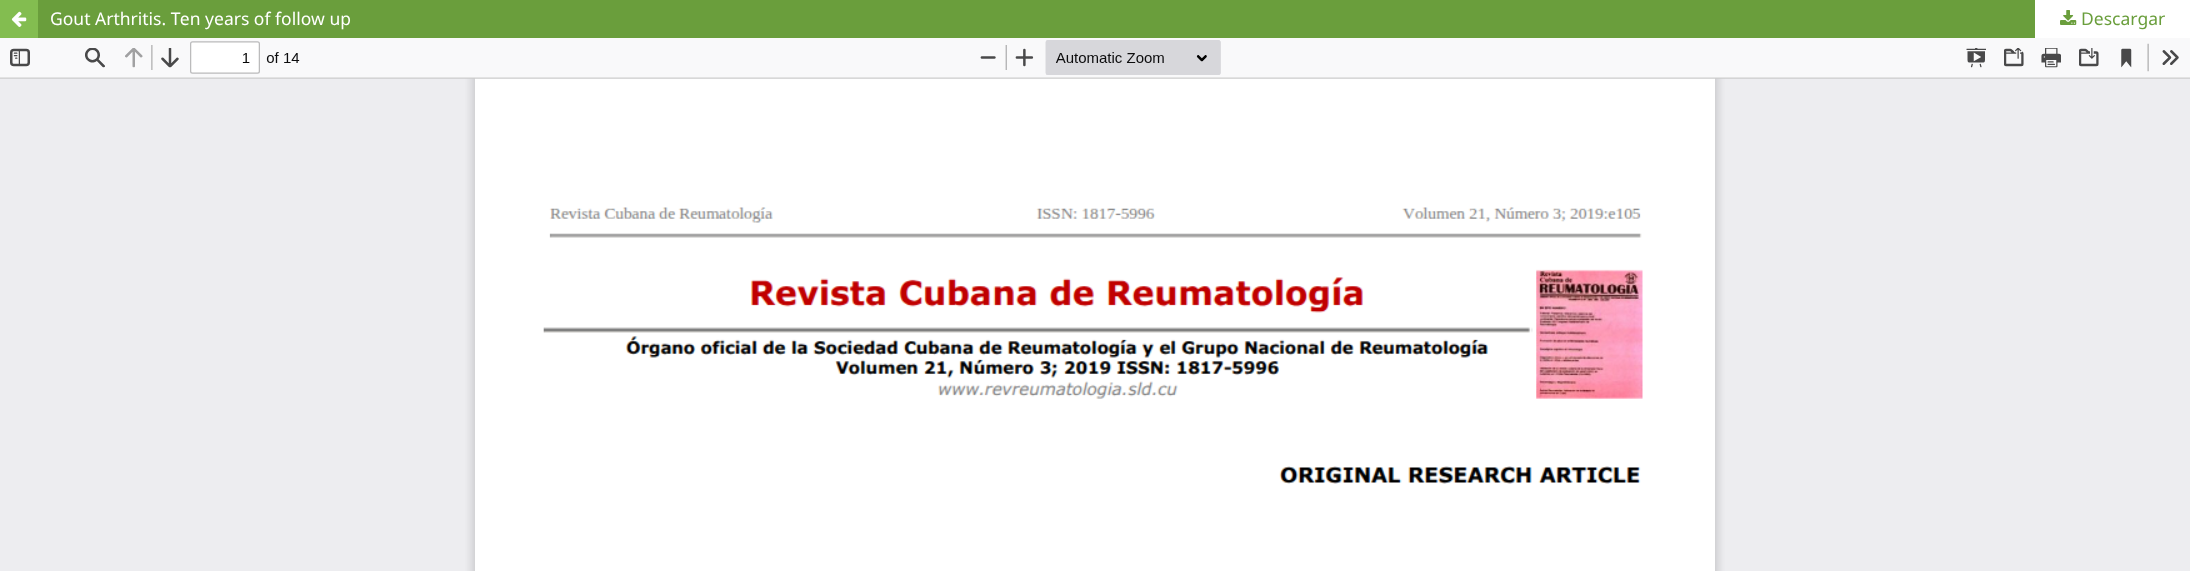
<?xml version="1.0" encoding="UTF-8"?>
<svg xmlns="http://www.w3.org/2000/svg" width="2190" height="571">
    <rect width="100%" height="100%" fill="#FFFFFF"/>
    <rect x="38" y="0" width="1997" height="38" fill="#6A9E3C"/>
    <rect x="0" y="0" width="38" height="38" fill="#83BD50"/>
    <image x="11" y="11" width="16" height="16" href="img_01.png"/>
    <text x="50" y="25" font-family="Noto Sans" font-size="17.5" fill="#FFFFFF">Gout Arthritis. Ten years of follow up</text>
    <image x="2060" y="10" width="17" height="15" href="img_02.png"/>
    <text x="2081" y="25" font-family="Noto Sans" font-size="17.5" fill="#6A9E3C">Descargar</text>
    <image x="0" y="38" width="2190" height="533" href="img_03.png"/>
</svg>
